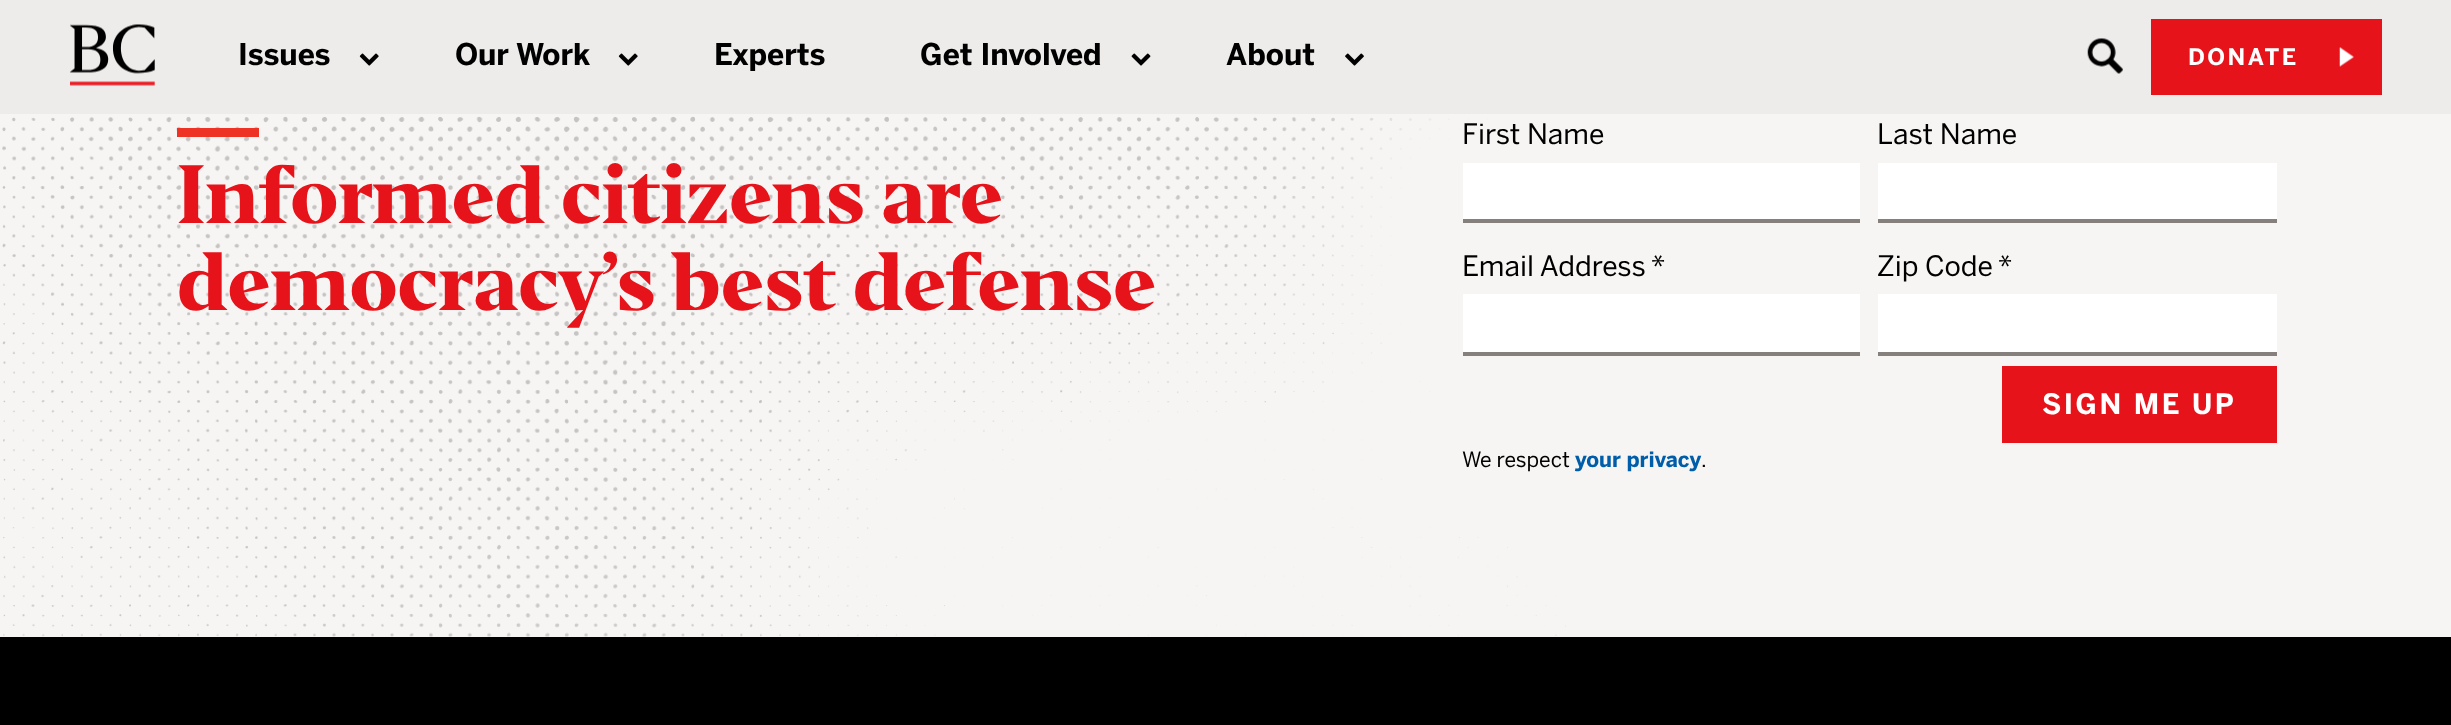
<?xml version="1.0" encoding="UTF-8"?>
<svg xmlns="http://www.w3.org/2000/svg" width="2451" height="725">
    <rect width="100%" height="100%" fill="#000000"/>
    <rect x="0" y="0" width="2451" height="114" fill="#EEECEA"/>
    <image x="70" y="24" width="85" height="62" href="img_01.png"/>
    <text x="238" y="65" font-family="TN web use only" font-size="29.75" font-weight="700" fill="#000000">Issues</text>
    <image x="359" y="53" width="20" height="13" href="img_02.png"/>
    <text x="455" y="65" font-family="TN web use only" font-size="29.75" font-weight="700" fill="#000000">Our Work</text>
    <image x="618" y="53" width="20" height="13" href="img_02.png"/>
    <text x="714" y="65" font-family="TN web use only" font-size="29.75" font-weight="700" fill="#000000">Experts</text>
    <text x="920" y="65" font-family="TN web use only" font-size="29.75" font-weight="700" fill="#000000">Get Involved</text>
    <image x="1131" y="53" width="20" height="13" href="img_03.png"/>
    <text x="1226" y="65" font-family="TN web use only" font-size="29.75" font-weight="700" fill="#000000">About</text>
    <image x="1345" y="53" width="19" height="13" href="img_04.png"/>
    <image x="2087" y="38" width="36" height="36" href="img_05.png"/>
    <rect x="2151" y="19" width="231" height="76" fill="#E7131A"/>
    <text x="2188" y="65" font-family="TN web use only" font-size="22.75" font-weight="700" letter-spacing="2.5" fill="#FFFFFF">DONATE</text>
    <image x="2339" y="47" width="15" height="20" href="img_06.png"/>
    <rect x="0" y="114" width="2451" height="523" fill="#F7F5F3"/>
    <image x="2" y="116" width="1564" height="521" href="img_07.png"/>
    <rect x="177" y="128" width="82" height="9" fill="#EE3224"/>
    <text font-family="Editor" font-size="77" font-weight="800" letter-spacing="-1.75" fill="#E7131A">
        <tspan x="176" y="223">Informed citizens are</tspan>
        <tspan x="176" y="310">democracy’s best defense</tspan>
    </text>
    <text x="1462" y="144" font-family="TN web use only" font-size="28" fill="#000000">First Name</text>
    <rect x="1463" y="163" width="397" height="56" fill="#FFFFFF"/>
    <rect x="1463" y="219" width="397" height="4" fill="#86807C"/>
    <text x="1877" y="144" font-family="TN web use only" font-size="28" fill="#000000">Last Name</text>
    <rect x="1878" y="163" width="399" height="56" fill="#FFFFFF"/>
    <rect x="1878" y="219" width="399" height="4" fill="#86807C"/>
    <text x="1462" y="276" font-family="TN web use only" font-size="28" fill="#000000">Email Address</text>
    <text x="1651" y="276" font-family="TN web use only" font-size="28" fill="#000000">*</text>
    <rect x="1463" y="294" width="397" height="58" fill="#FFFFFF"/>
    <rect x="1463" y="352" width="397" height="4" fill="#86807C"/>
    <text x="1877" y="276" font-family="TN web use only" font-size="28" fill="#000000">Zip Code</text>
    <text x="1998" y="276" font-family="TN web use only" font-size="28" fill="#000000">*</text>
    <rect x="1878" y="294" width="399" height="58" fill="#FFFFFF"/>
    <rect x="1878" y="352" width="399" height="4" fill="#86807C"/>
    <rect x="2002" y="366" width="275" height="77" fill="#E7131A"/>
    <text x="2042" y="414" font-family="TN web use only" font-size="28" font-weight="700" letter-spacing="2.5" fill="#FFFFFF">SIGN ME UP</text>
    <text x="1462" y="467" font-family="TN web use only" font-size="21" fill="#000000">We respect</text>
    <text x="1575" y="467" font-family="TN web use only" font-size="21" font-weight="700" fill="#005DAA">your privacy</text>
    <text x="1701" y="467" font-family="TN web use only" font-size="21" fill="#000000">.</text>
</svg>
